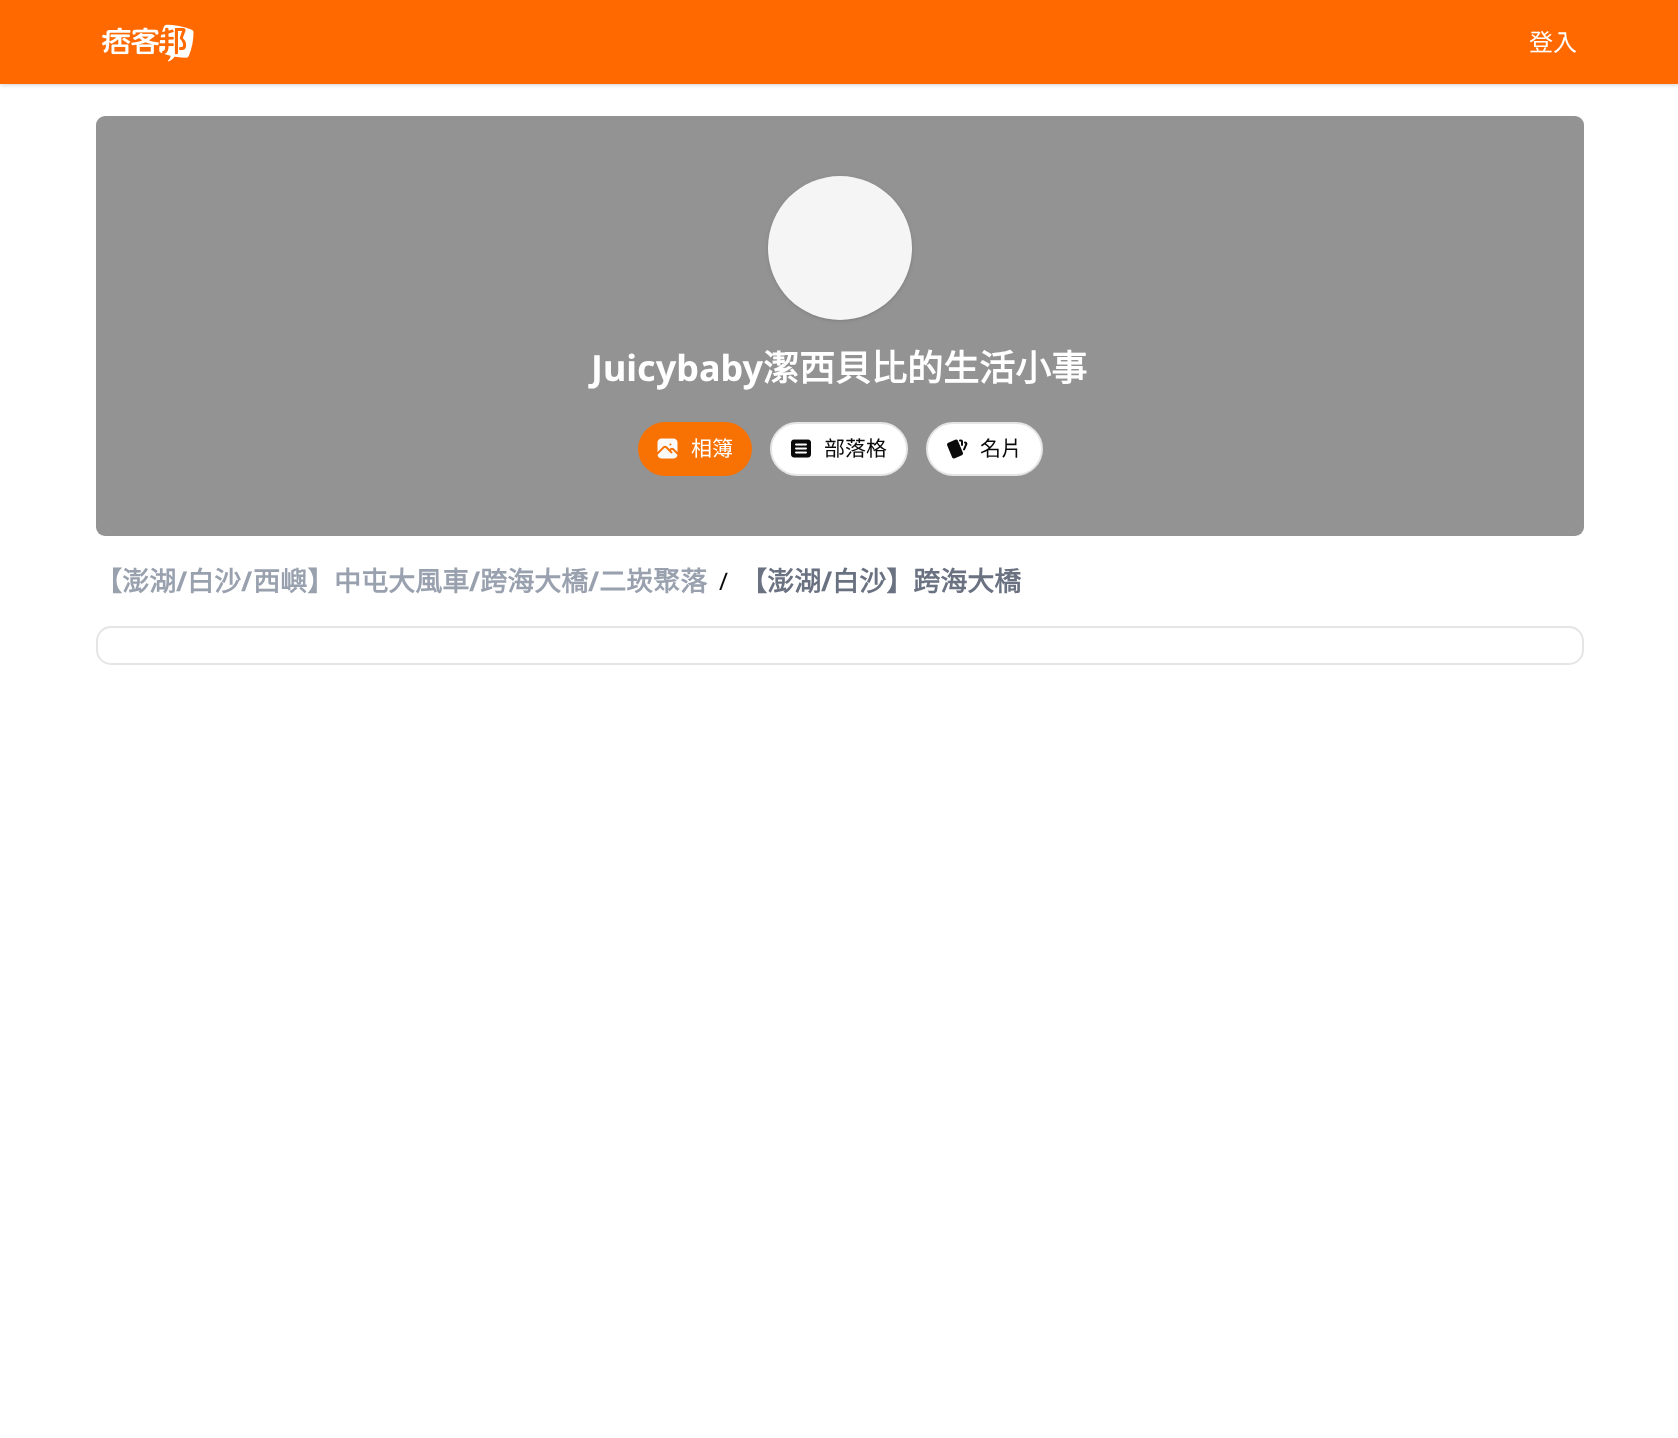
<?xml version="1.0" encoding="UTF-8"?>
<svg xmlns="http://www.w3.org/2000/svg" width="1678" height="1438">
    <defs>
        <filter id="blur1" x="-50%" y="-200%" width="200%" height="500%"><feGaussianBlur stdDeviation="1.5"/></filter>
        <filter id="blur2" x="-50%" y="-200%" width="200%" height="500%"><feGaussianBlur stdDeviation="2"/></filter>
    </defs>
    <rect width="100%" height="100%" fill="#FFFFFF"/>
    <rect x="2" y="3" width="1675" height="81" fill="#000000" fill-opacity="0.1" filter="url(#blur1)"/>
    <rect x="0" y="2" width="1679" height="84" fill="#000000" fill-opacity="0.1" filter="url(#blur2)"/>
    <rect x="0" y="0" width="1678" height="84" fill="#FF6900"/>
    <image x="102" y="24" width="92" height="38" href="img_01.png"/>
    <text x="1529" y="51" font-family="Noto Sans CJK TC" font-size="24" fill="#FFFFFF">登入</text>
    <rect x="96" y="116" width="1488" height="420" rx="9" fill="#F5F5F5"/>
    <rect x="96" y="116" width="1488" height="420" rx="9" fill="#000000" fill-opacity="0.4"/>
    <rect x="770" y="179" width="141" height="141" rx="70.5" fill="#000000" fill-opacity="0.1" filter="url(#blur1)"/>
    <rect x="768" y="177" width="144" height="144" rx="72" fill="#000000" fill-opacity="0.1" filter="url(#blur2)"/>
    <circle cx="840" cy="248" r="72" fill="#F5F5F5"/>
    <text x="591" y="381" font-family="Noto Sans" font-size="36" font-weight="700" fill="#FFFFFF">Juicybaby</text>
    <text x="763" y="381" font-family="Noto Sans CJK TC" font-size="36" font-weight="700" fill="#FFFFFF">潔西貝比的生活小事</text>
    <rect x="638" y="422" width="114" height="54" rx="27" fill="#F87103"/>
    <image x="657" y="438" width="21" height="21" href="img_02.png"/>
    <text x="691" y="456" font-family="Noto Sans CJK TC" font-size="21" fill="#FFFFFF">相簿</text>
    <rect x="771" y="423" width="136" height="52" rx="26" fill="#FFFFFF" stroke="#E5E5E5" stroke-width="2"/>
    <image x="791" y="439" width="20" height="19" href="img_03.png"/>
    <text x="824" y="456" font-family="Noto Sans CJK TC" font-size="21" fill="#0A0A0A">部落格</text>
    <rect x="927" y="423" width="115" height="52" rx="26" fill="#FFFFFF" stroke="#E5E5E5" stroke-width="2"/>
    <image x="947" y="439" width="21" height="20" href="img_04.png"/>
    <text x="980" y="456" font-family="Noto Sans CJK TC" font-size="21" fill="#0A0A0A">名片</text>
    <text x="95" y="591" font-family="Noto Sans CJK TC" font-size="27" font-weight="700" fill="#99A1AF">【澎湖</text>
    <text x="176" y="591" font-family="Noto Sans" font-size="27" font-weight="700" fill="#99A1AF">/</text>
    <text x="187" y="591" font-family="Noto Sans CJK TC" font-size="27" font-weight="700" fill="#99A1AF">白沙</text>
    <text x="241" y="591" font-family="Noto Sans" font-size="27" font-weight="700" fill="#99A1AF">/</text>
    <text x="253" y="591" font-family="Noto Sans CJK TC" font-size="27" font-weight="700" fill="#99A1AF">西嶼】中屯大風車</text>
    <text x="469" y="591" font-family="Noto Sans" font-size="27" font-weight="700" fill="#99A1AF">/</text>
    <text x="480" y="591" font-family="Noto Sans CJK TC" font-size="27" font-weight="700" fill="#99A1AF">跨海大橋</text>
    <text x="588" y="591" font-family="Noto Sans" font-size="27" font-weight="700" fill="#99A1AF">/</text>
    <text x="599" y="591" font-family="Noto Sans CJK TC" font-size="27" font-weight="700" fill="#99A1AF">二崁聚落</text>
    <text x="719" y="590" font-family="Noto Sans" font-size="24" fill="#0A0A0A">/</text>
    <text x="740" y="591" font-family="Noto Sans CJK TC" font-size="27" font-weight="700" fill="#6A7282">【澎湖</text>
    <text x="821" y="591" font-family="Noto Sans" font-size="27" font-weight="700" fill="#6A7282">/</text>
    <text x="832" y="591" font-family="Noto Sans CJK TC" font-size="27" font-weight="700" fill="#6A7282">白沙】跨海大橋</text>
    <rect x="97" y="627" width="1486" height="37" rx="14" fill="none" stroke="#E5E5E5" stroke-width="2"/>
</svg>
